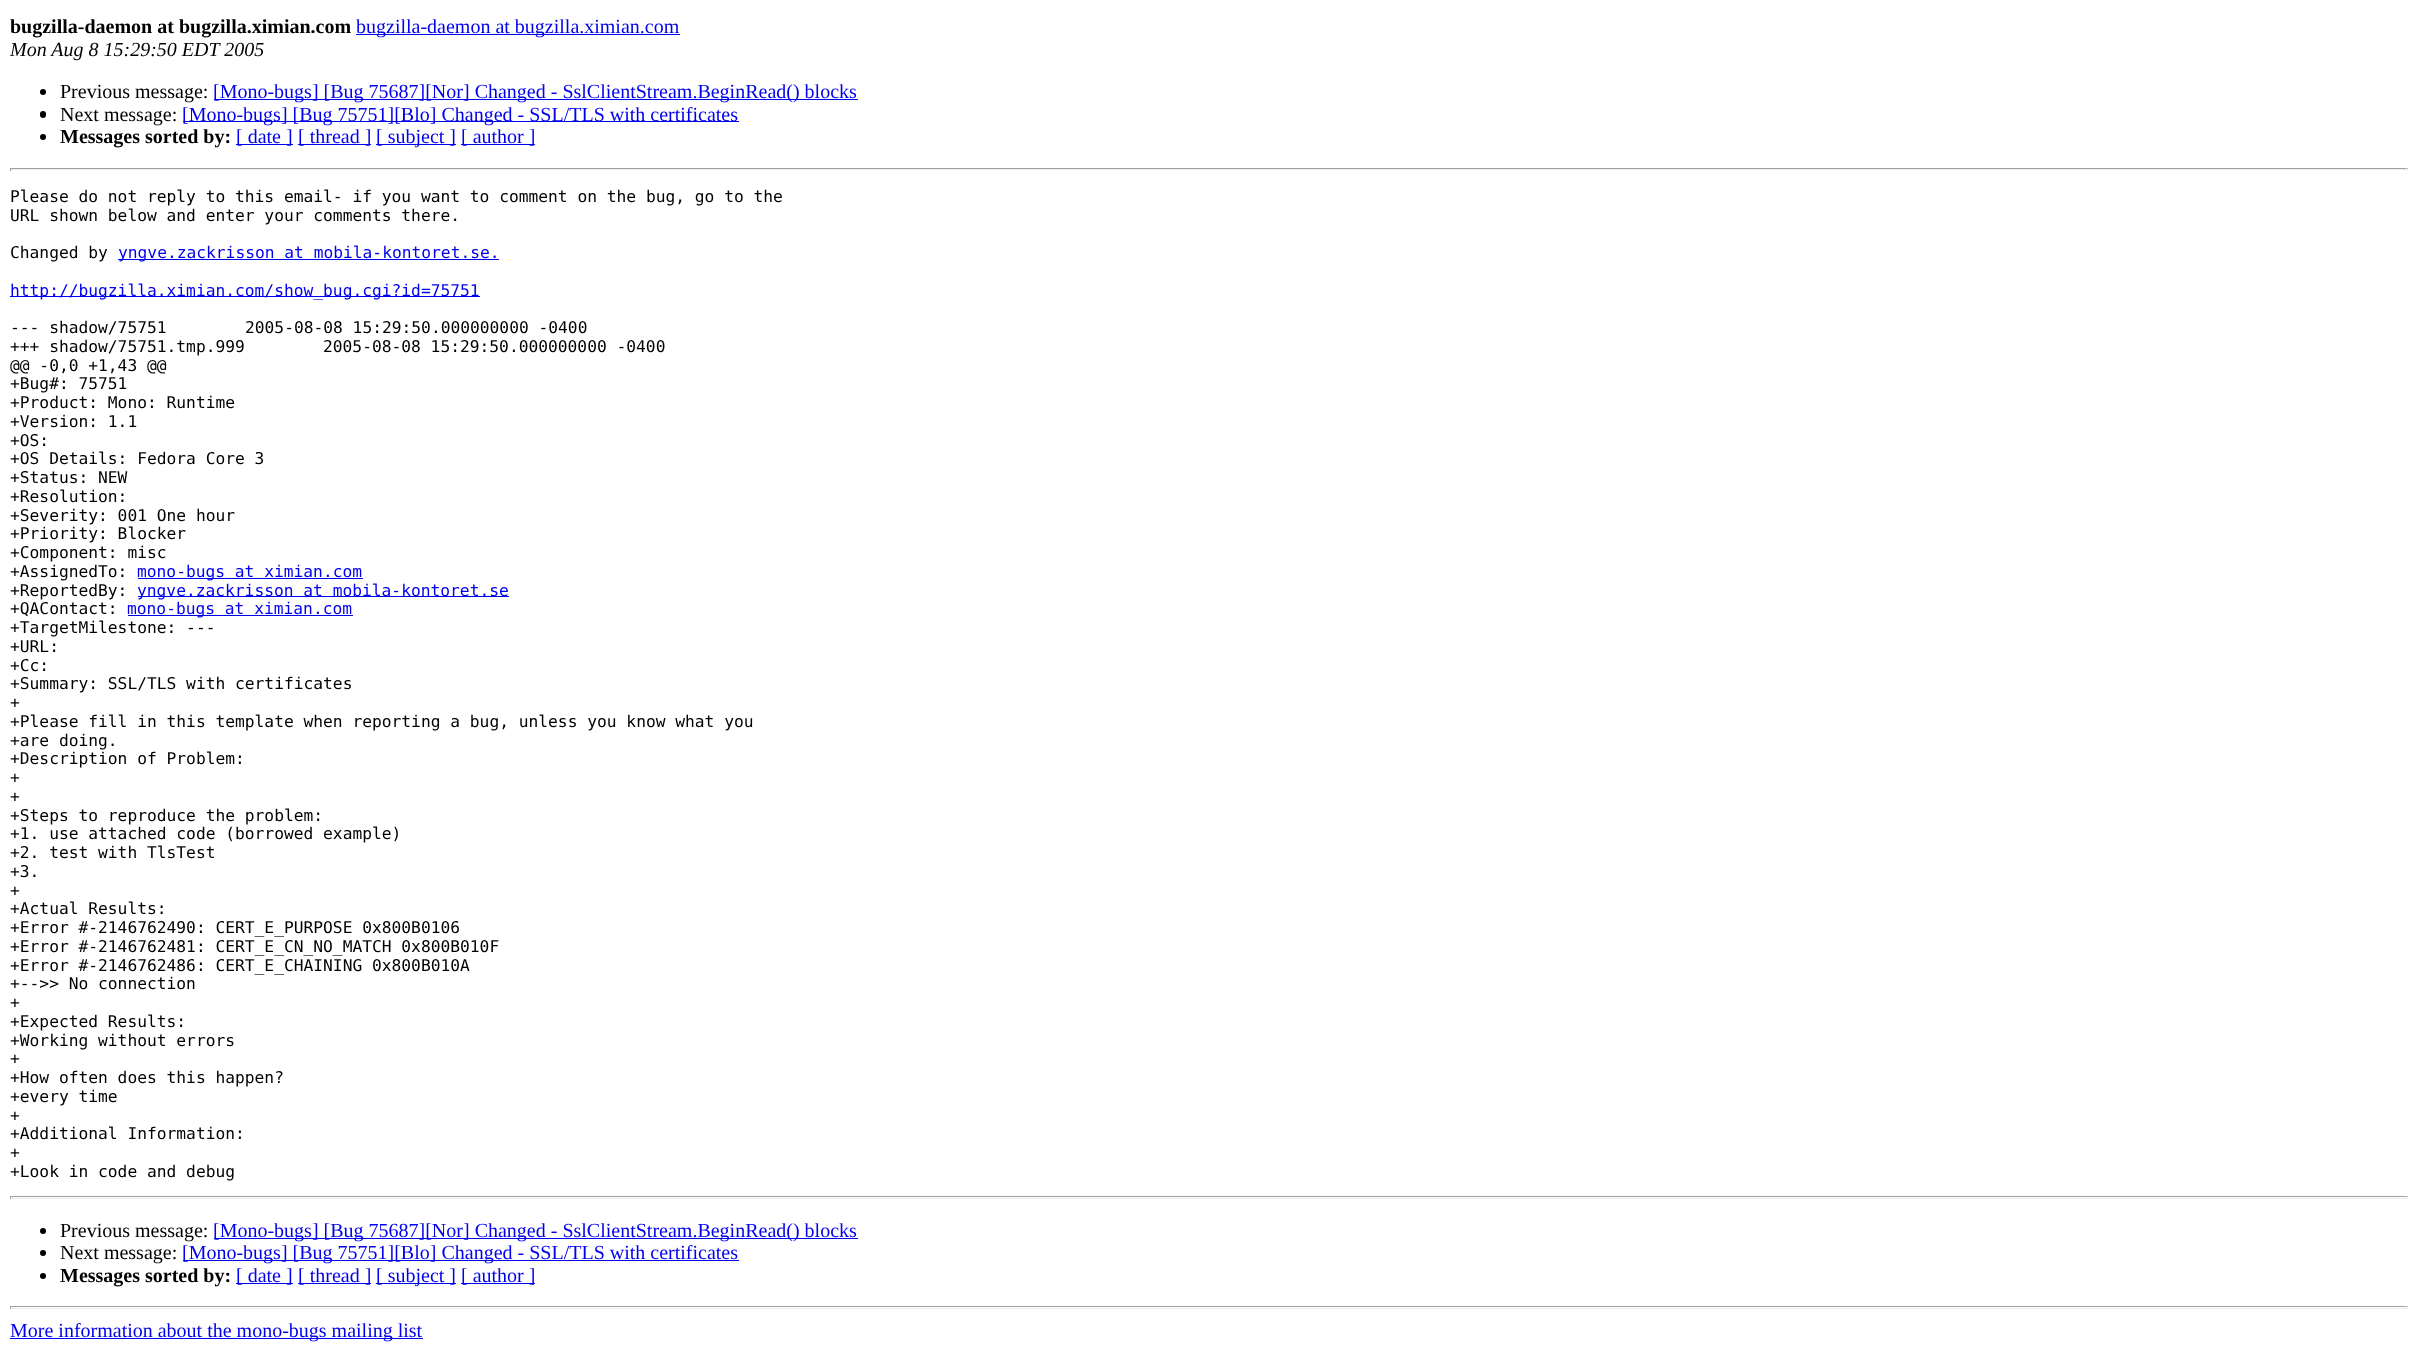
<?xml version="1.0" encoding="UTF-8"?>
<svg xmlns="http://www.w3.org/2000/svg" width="2417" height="1351">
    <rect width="100%" height="100%" fill="#FFFFFF"/>
    <text x="10" y="33" font-family="Liberation Serif" font-size="20" font-weight="700" fill="#000000">bugzilla-daemon at bugzilla.ximian.com</text>
    <rect x="356" y="34" width="324" height="1" fill="#0000EE"/>
    <text x="356" y="33" font-family="Liberation Serif" font-size="20" fill="#0000EE">bugzilla-daemon at bugzilla.ximian.com</text>
    <text x="10" y="56" font-family="Liberation Serif" font-size="20" font-style="italic" fill="#000000">Mon Aug 8 15:29:50 EDT 2005</text>
    <circle cx="43" cy="92" r="3" fill="#000000"/>
    <text x="60" y="98" font-family="Liberation Serif" font-size="20" fill="#000000">Previous message:</text>
    <rect x="214" y="99" width="644" height="1" fill="#0000EE"/>
    <text x="213" y="98" font-family="Liberation Serif" font-size="20" fill="#0000EE">[Mono-bugs] [Bug 75687][Nor] Changed - SslClientStream.BeginRead() blocks</text>
    <rect x="40" y="111" width="6" height="7" rx="3" fill="#000000"/>
    <text x="60" y="121" font-family="Liberation Serif" font-size="20" fill="#000000">Next message:</text>
    <rect x="183" y="121" width="556" height="1" fill="#0000EE"/>
    <text x="182" y="121" font-family="Liberation Serif" font-size="20" fill="#0000EE">[Mono-bugs] [Bug 75751][Blo] Changed - SSL/TLS with certificates</text>
    <circle cx="43" cy="137" r="3" fill="#000000"/>
    <text x="60" y="143" font-family="Liberation Serif" font-size="20" font-weight="700" fill="#000000">Messages sorted by:</text>
    <rect x="236" y="144" width="57" height="1" fill="#0000EE"/>
    <text x="236" y="143" font-family="Liberation Serif" font-size="20" fill="#0000EE">[ date ]</text>
    <rect x="298" y="144" width="73" height="1" fill="#0000EE"/>
    <text x="298" y="143" font-family="Liberation Serif" font-size="20" fill="#0000EE">[ thread ]</text>
    <rect x="376" y="144" width="80" height="1" fill="#0000EE"/>
    <text x="376" y="143" font-family="Liberation Serif" font-size="20" fill="#0000EE">[ subject ]</text>
    <rect x="461" y="144" width="74" height="1" fill="#0000EE"/>
    <text x="461" y="143" font-family="Liberation Serif" font-size="20" fill="#0000EE">[ author ]</text>
    <rect x="10" y="168" width="2398" height="1" fill="#9F9F9F"/>
    <rect x="2406" y="168" width="1" height="3" fill="#EEEEEE"/>
    <rect x="10" y="169" width="2398" height="1" fill="#EEEEEE"/>
    <rect x="10" y="168" width="1" height="3" fill="#9F9F9F"/>
    <text font-family="DejaVu Sans Mono" font-size="16.25" fill="#000000">
        <tspan x="10" y="202">Please do not reply to this email- if you want to comment on the bug, go to the</tspan>
        <tspan x="10" y="221">URL shown below and enter your comments there.</tspan>
    </text>
    <text x="10" y="258" font-family="DejaVu Sans Mono" font-size="16.25" fill="#000000">Changed by</text>
    <rect x="118" y="259" width="381" height="1" fill="#0000EE"/>
    <text x="118" y="258" font-family="DejaVu Sans Mono" font-size="16.25" fill="#0000EE">yngve.zackrisson at mobila-kontoret.se.</text>
    <rect x="10" y="296" width="470" height="1" fill="#0000EE"/>
    <text x="10" y="296" font-family="DejaVu Sans Mono" font-size="16.25" fill="#0000EE">http://bugzilla.ximian.com/show_bug.cgi?id=75751</text>
    <text x="10" y="333" font-family="DejaVu Sans Mono" font-size="16.25" fill="#000000">--- shadow/75751</text>
    <text x="245" y="333" font-family="DejaVu Sans Mono" font-size="16.25" fill="#000000">2005-08-08 15:29:50.000000000 -0400</text>
    <text x="10" y="352" font-family="DejaVu Sans Mono" font-size="16.25" fill="#000000">+++ shadow/75751.tmp.999</text>
    <text x="323" y="352" font-family="DejaVu Sans Mono" font-size="16.25" fill="#000000">2005-08-08 15:29:50.000000000 -0400</text>
    <text font-family="DejaVu Sans Mono" font-size="16.25" fill="#000000">
        <tspan x="10" y="371">@@ -0,0 +1,43 @@</tspan>
        <tspan x="10" y="389">+Bug#: 75751</tspan>
        <tspan x="10" y="408">+Product: Mono: Runtime</tspan>
        <tspan x="10" y="427">+Version: 1.1</tspan>
        <tspan x="10" y="446">+OS:</tspan>
        <tspan x="10" y="464">+OS Details: Fedora Core 3</tspan>
        <tspan x="10" y="483">+Status: NEW</tspan>
        <tspan x="10" y="502">+Resolution:</tspan>
        <tspan x="10" y="521">+Severity: 001 One hour</tspan>
        <tspan x="10" y="539">+Priority: Blocker</tspan>
        <tspan x="10" y="558">+Component: misc</tspan>
        <tspan x="10" y="577">+AssignedTo:</tspan>
    </text>
    <rect x="138" y="578" width="225" height="1" fill="#0000EE"/>
    <text x="137" y="577" font-family="DejaVu Sans Mono" font-size="16.25" fill="#0000EE">mono-bugs at ximian.com</text>
    <text x="10" y="596" font-family="DejaVu Sans Mono" font-size="16.25" fill="#000000">+ReportedBy:</text>
    <rect x="138" y="596" width="371" height="1" fill="#0000EE"/>
    <text x="137" y="596" font-family="DejaVu Sans Mono" font-size="16.25" fill="#0000EE">yngve.zackrisson at mobila-kontoret.se</text>
    <text x="10" y="614" font-family="DejaVu Sans Mono" font-size="16.25" fill="#000000">+QAContact:</text>
    <rect x="128" y="615" width="225" height="1" fill="#0000EE"/>
    <text x="127" y="614" font-family="DejaVu Sans Mono" font-size="16.25" fill="#0000EE">mono-bugs at ximian.com</text>
    <text font-family="DejaVu Sans Mono" font-size="16.25" fill="#000000">
        <tspan x="10" y="633">+TargetMilestone: ---</tspan>
        <tspan x="10" y="652">+URL:</tspan>
        <tspan x="10" y="671">+Cc:</tspan>
        <tspan x="10" y="689">+Summary: SSL/TLS with certificates</tspan>
        <tspan x="10" y="708">+</tspan>
        <tspan x="10" y="727">+Please fill in this template when reporting a bug, unless you know what you</tspan>
        <tspan x="10" y="746">+are doing.</tspan>
        <tspan x="10" y="764">+Description of Problem:</tspan>
        <tspan x="10" y="783">+</tspan>
        <tspan x="10" y="802">+</tspan>
        <tspan x="10" y="821">+Steps to reproduce the problem:</tspan>
        <tspan x="10" y="839">+1. use attached code (borrowed example)</tspan>
        <tspan x="10" y="858">+2. test with TlsTest</tspan>
        <tspan x="10" y="877">+3.</tspan>
        <tspan x="10" y="896">+</tspan>
        <tspan x="10" y="914">+Actual Results:</tspan>
        <tspan x="10" y="933">+Error #-2146762490: CERT_E_PURPOSE 0x800B0106</tspan>
        <tspan x="10" y="952">+Error #-2146762481: CERT_E_CN_NO_MATCH 0x800B010F</tspan>
        <tspan x="10" y="971">+Error #-2146762486: CERT_E_CHAINING 0x800B010A</tspan>
        <tspan x="10" y="989">+--&gt;&gt; No connection</tspan>
        <tspan x="10" y="1008">+</tspan>
        <tspan x="10" y="1027">+Expected Results:</tspan>
        <tspan x="10" y="1046">+Working without errors</tspan>
        <tspan x="10" y="1064">+</tspan>
        <tspan x="10" y="1083">+How often does this happen?</tspan>
        <tspan x="10" y="1102">+every time</tspan>
        <tspan x="10" y="1121">+</tspan>
        <tspan x="10" y="1139">+Additional Information:</tspan>
        <tspan x="10" y="1158">+</tspan>
        <tspan x="10" y="1177">+Look in code and debug</tspan>
    </text>
    <rect x="10" y="1196" width="2398" height="1" fill="#9F9F9F"/>
    <rect x="2406" y="1196" width="1" height="3" fill="#EEEEEE"/>
    <rect x="10" y="1198" width="2398" height="1" fill="#EEEEEE"/>
    <rect x="10" y="1196" width="1" height="3" fill="#9F9F9F"/>
    <circle cx="43" cy="1231" r="3" fill="#000000"/>
    <text x="60" y="1237" font-family="Liberation Serif" font-size="20" fill="#000000">Previous message:</text>
    <rect x="214" y="1238" width="644" height="1" fill="#0000EE"/>
    <text x="213" y="1237" font-family="Liberation Serif" font-size="20" fill="#0000EE">[Mono-bugs] [Bug 75687][Nor] Changed - SslClientStream.BeginRead() blocks</text>
    <circle cx="43" cy="1253" r="3" fill="#000000"/>
    <text x="60" y="1259" font-family="Liberation Serif" font-size="20" fill="#000000">Next message:</text>
    <rect x="183" y="1260" width="556" height="1" fill="#0000EE"/>
    <text x="182" y="1259" font-family="Liberation Serif" font-size="20" fill="#0000EE">[Mono-bugs] [Bug 75751][Blo] Changed - SSL/TLS with certificates</text>
    <circle cx="43" cy="1276" r="3" fill="#000000"/>
    <text x="60" y="1282" font-family="Liberation Serif" font-size="20" font-weight="700" fill="#000000">Messages sorted by:</text>
    <rect x="236" y="1283" width="57" height="1" fill="#0000EE"/>
    <text x="236" y="1282" font-family="Liberation Serif" font-size="20" fill="#0000EE">[ date ]</text>
    <rect x="298" y="1283" width="73" height="1" fill="#0000EE"/>
    <text x="298" y="1282" font-family="Liberation Serif" font-size="20" fill="#0000EE">[ thread ]</text>
    <rect x="376" y="1283" width="80" height="1" fill="#0000EE"/>
    <text x="376" y="1282" font-family="Liberation Serif" font-size="20" fill="#0000EE">[ subject ]</text>
    <rect x="461" y="1283" width="74" height="1" fill="#0000EE"/>
    <text x="461" y="1282" font-family="Liberation Serif" font-size="20" fill="#0000EE">[ author ]</text>
    <rect x="10" y="1306" width="2398" height="1" fill="#9F9F9F"/>
    <rect x="2406" y="1306" width="1" height="3" fill="#EEEEEE"/>
    <rect x="10" y="1308" width="2398" height="1" fill="#EEEEEE"/>
    <rect x="10" y="1306" width="1" height="3" fill="#9F9F9F"/>
    <rect x="10" y="1338" width="413" height="1" fill="#0000EE"/>
    <text x="10" y="1337" font-family="Liberation Serif" font-size="20" fill="#0000EE">More information about the mono-bugs mailing list</text>
</svg>
